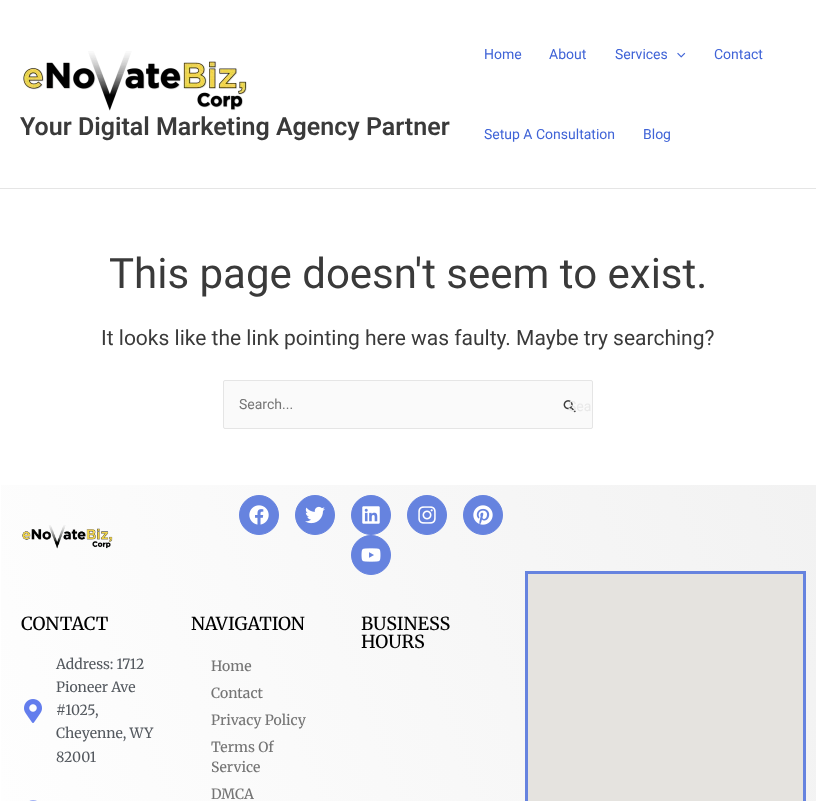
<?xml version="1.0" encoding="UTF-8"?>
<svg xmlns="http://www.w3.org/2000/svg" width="816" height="801">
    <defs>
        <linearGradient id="g1" gradientUnits="userSpaceOnUse" x1="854" y1="589" x2="-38" y2="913"><stop offset="0" stop-color="#F2F2F2"/><stop offset="1" stop-color="#FFFFFF"/></linearGradient>
    </defs>
    <rect width="100%" height="100%" fill="#FFFFFF"/>
    <rect x="0" y="188" width="816" height="1" fill="#E5E5E5"/>
    <image x="23" y="51" width="224" height="60" href="img_01.png"/>
    <text x="20" y="135" font-family="Roboto" font-size="25" font-weight="600" fill="#3A3A3A">Your Digital Marketing Agency Partner</text>
    <text x="484" y="59" font-family="Roboto" font-size="14" fill="#4064D7">Home</text>
    <text x="549" y="59" font-family="Roboto" font-size="14" fill="#4064D7">About</text>
    <text x="615" y="59" font-family="Roboto" font-size="14" fill="#4064D7">Services</text>
    <image x="677" y="52" width="9" height="6" href="img_02.png"/>
    <text x="714" y="59" font-family="Roboto" font-size="14" fill="#4064D7">Contact</text>
    <text x="484" y="139" font-family="Roboto" font-size="14" fill="#4064D7">Setup A Consultation</text>
    <text x="643" y="139" font-family="Roboto" font-size="14" fill="#4064D7">Blog</text>
    <text x="109" y="288" font-family="Roboto" font-size="42" fill="#3A3A3A">This page doesn't seem to exist.</text>
    <text x="101" y="345" font-family="Roboto" font-size="21" fill="#3A3A3A">It looks like the link pointing here was faulty. Maybe try searching?</text>
    <rect x="223.5" y="380.5" width="369" height="48" rx="1.5" fill="#FAFAFA" stroke="#E5E5E5"/>
    <text x="239" y="409" font-family="Roboto" font-size="14" fill="#757575">Search...</text>
    <image x="563" y="400" width="13" height="13" href="img_03.png"/>
    <text x="568" y="411" font-family="Roboto" font-size="14" fill="#E9E9E9">Sea</text>
    <rect x="1" y="485" width="815" height="316" fill="url(#g1)"/>
    <image x="22" y="525" width="91" height="24" href="img_04.png"/>
    <circle cx="259" cy="515" r="19.5" fill="#6683DF" stroke="#6683DF"/>
    <image x="249" y="505" width="20" height="20" href="img_05.png"/>
    <circle cx="315" cy="515" r="19.5" fill="#6683DF" stroke="#6683DF"/>
    <image x="305" y="506" width="20" height="18" href="img_06.png"/>
    <circle cx="371" cy="515" r="19.5" fill="#6683DF" stroke="#6683DF"/>
    <image x="362" y="506" width="18" height="18" href="img_07.png"/>
    <circle cx="427" cy="515" r="19.5" fill="#6683DF" stroke="#6683DF"/>
    <image x="418" y="506" width="18" height="18" href="img_08.png"/>
    <circle cx="483" cy="515" r="19.5" fill="#6683DF" stroke="#6683DF"/>
    <image x="473" y="505" width="20" height="20" href="img_09.png"/>
    <circle cx="371" cy="555" r="19.5" fill="#6683DF" stroke="#6683DF"/>
    <image x="361" y="548" width="20" height="14" href="img_10.png"/>
    <text x="21" y="630" font-family="Merriweather" font-size="18" font-weight="500" fill="#000000">CONTACT</text>
    <image x="24" y="699" width="18" height="24" href="img_11.png"/>
    <text font-family="Merriweather" font-size="14" fill="#54595F">
        <tspan x="56" y="669">Address: 1712</tspan>
        <tspan x="56" y="692">Pioneer Ave</tspan>
        <tspan x="56" y="715">#1025,</tspan>
        <tspan x="56" y="738">Cheyenne, WY</tspan>
        <tspan x="56" y="762">82001</tspan>
    </text>
    <image x="29" y="800" width="8" height="1" href="img_12.png"/>
    <text x="191" y="630" font-family="Merriweather" font-size="18" font-weight="500" fill="#000000">NAVIGATION</text>
    <text font-family="Merriweather" font-size="14" font-weight="500" fill="#757575">
        <tspan x="211" y="671">Home</tspan>
        <tspan x="211" y="698">Contact</tspan>
        <tspan x="211" y="725">Privacy Policy</tspan>
        <tspan x="211" y="752">Terms Of</tspan>
        <tspan x="211" y="772">Service</tspan>
        <tspan x="211" y="799">DMCA</tspan>
    </text>
    <text font-family="Merriweather" font-size="18" font-weight="500" fill="#000000">
        <tspan x="361" y="630">BUSINESS</tspan>
        <tspan x="361" y="648">HOURS</tspan>
    </text>
    <rect x="526.5" y="572.5" width="278" height="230" fill="none" stroke="#6683DF" stroke-width="3"/>
    <rect x="528" y="574" width="275" height="227" fill="#E5E3DF"/>
</svg>
